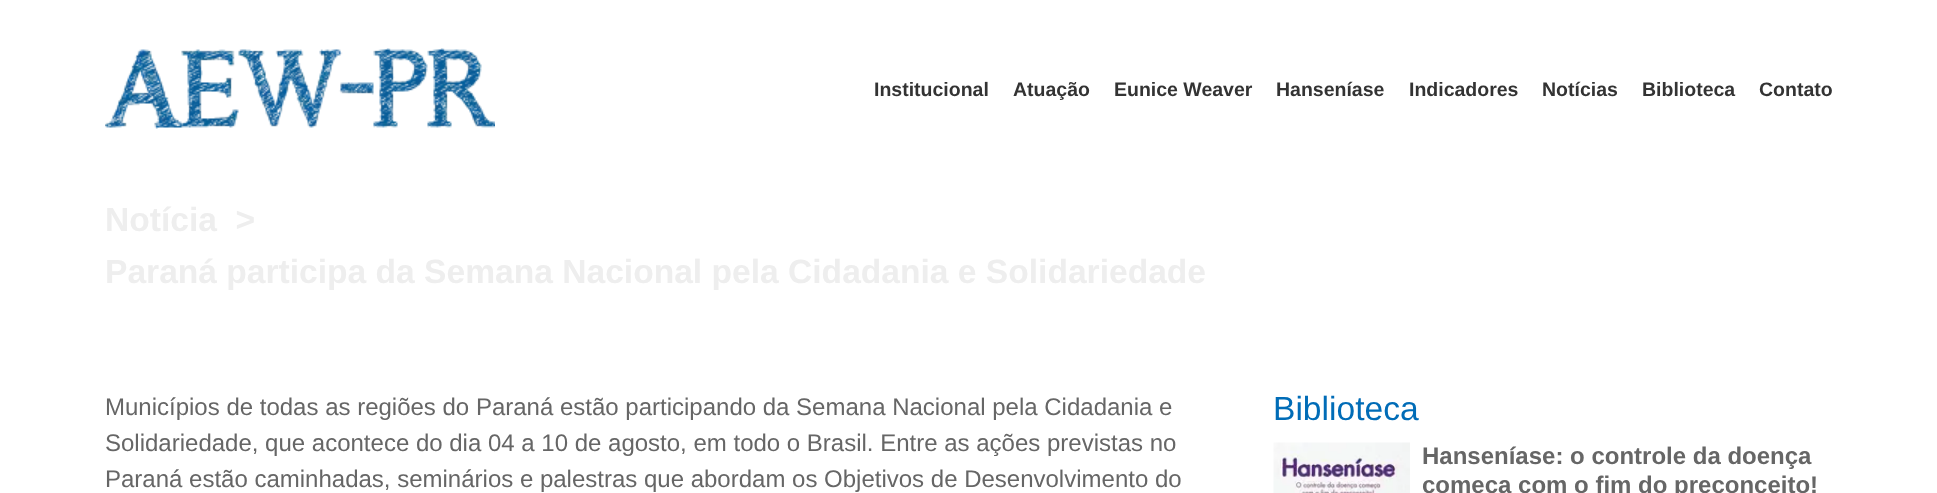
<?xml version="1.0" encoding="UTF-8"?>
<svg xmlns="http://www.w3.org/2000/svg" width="1937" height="493">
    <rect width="100%" height="100%" fill="#FFFFFF"/>
    <image x="105" y="48" width="390" height="81" href="img_01.png"/>
    <text x="874" y="96" font-family="Liberation Sans" font-size="19.5" font-weight="700" fill="#333333">Institucional</text>
    <text x="1013" y="96" font-family="Liberation Sans" font-size="19.5" font-weight="700" fill="#333333">Atuação</text>
    <text x="1114" y="96" font-family="Liberation Sans" font-size="19.5" font-weight="700" fill="#333333">Eunice Weaver</text>
    <text x="1276" y="96" font-family="Liberation Sans" font-size="19.5" font-weight="700" fill="#333333">Hanseníase</text>
    <text x="1409" y="96" font-family="Liberation Sans" font-size="19.5" font-weight="700" fill="#333333">Indicadores</text>
    <text x="1542" y="96" font-family="Liberation Sans" font-size="19.5" font-weight="700" fill="#333333">Notícias</text>
    <text x="1642" y="96" font-family="Liberation Sans" font-size="19.5" font-weight="700" fill="#333333">Biblioteca</text>
    <text x="1759" y="96" font-family="Liberation Sans" font-size="19.5" font-weight="700" fill="#333333">Contato</text>
    <text font-family="Liberation Sans" font-size="33.6" font-weight="700" fill="#EEEEEE" xml:space="preserve"><tspan x="105" y="231">Notícia  &gt;</tspan><tspan x="105" y="283">Paraná participa da Semana Nacional pela Cidadania e Solidariedade</tspan></text>
    <text font-family="Liberation Sans" font-size="24" fill="#666666">
        <tspan x="105" y="415">Municípios de todas as regiões do Paraná estão participando da Semana Nacional pela Cidadania e</tspan>
        <tspan x="105" y="451">Solidariedade, que acontece do dia 04 a 10 de agosto, em todo o Brasil. Entre as ações previstas no</tspan>
        <tspan x="105" y="487">Paraná estão caminhadas, seminários e palestras que abordam os Objetivos de Desenvolvimento do</tspan>
    </text>
    <text x="1273" y="420" font-family="Liberation Sans" font-size="33.6" fill="#006CB7">Biblioteca</text>
    <image x="1273" y="442" width="137" height="51" href="img_02.png"/>
    <text font-family="Liberation Sans" font-size="24" font-weight="700" fill="#666666">
        <tspan x="1422" y="464">Hanseníase: o controle da doença</tspan>
        <tspan x="1422" y="493">começa com o fim do preconceito!</tspan>
    </text>
</svg>
